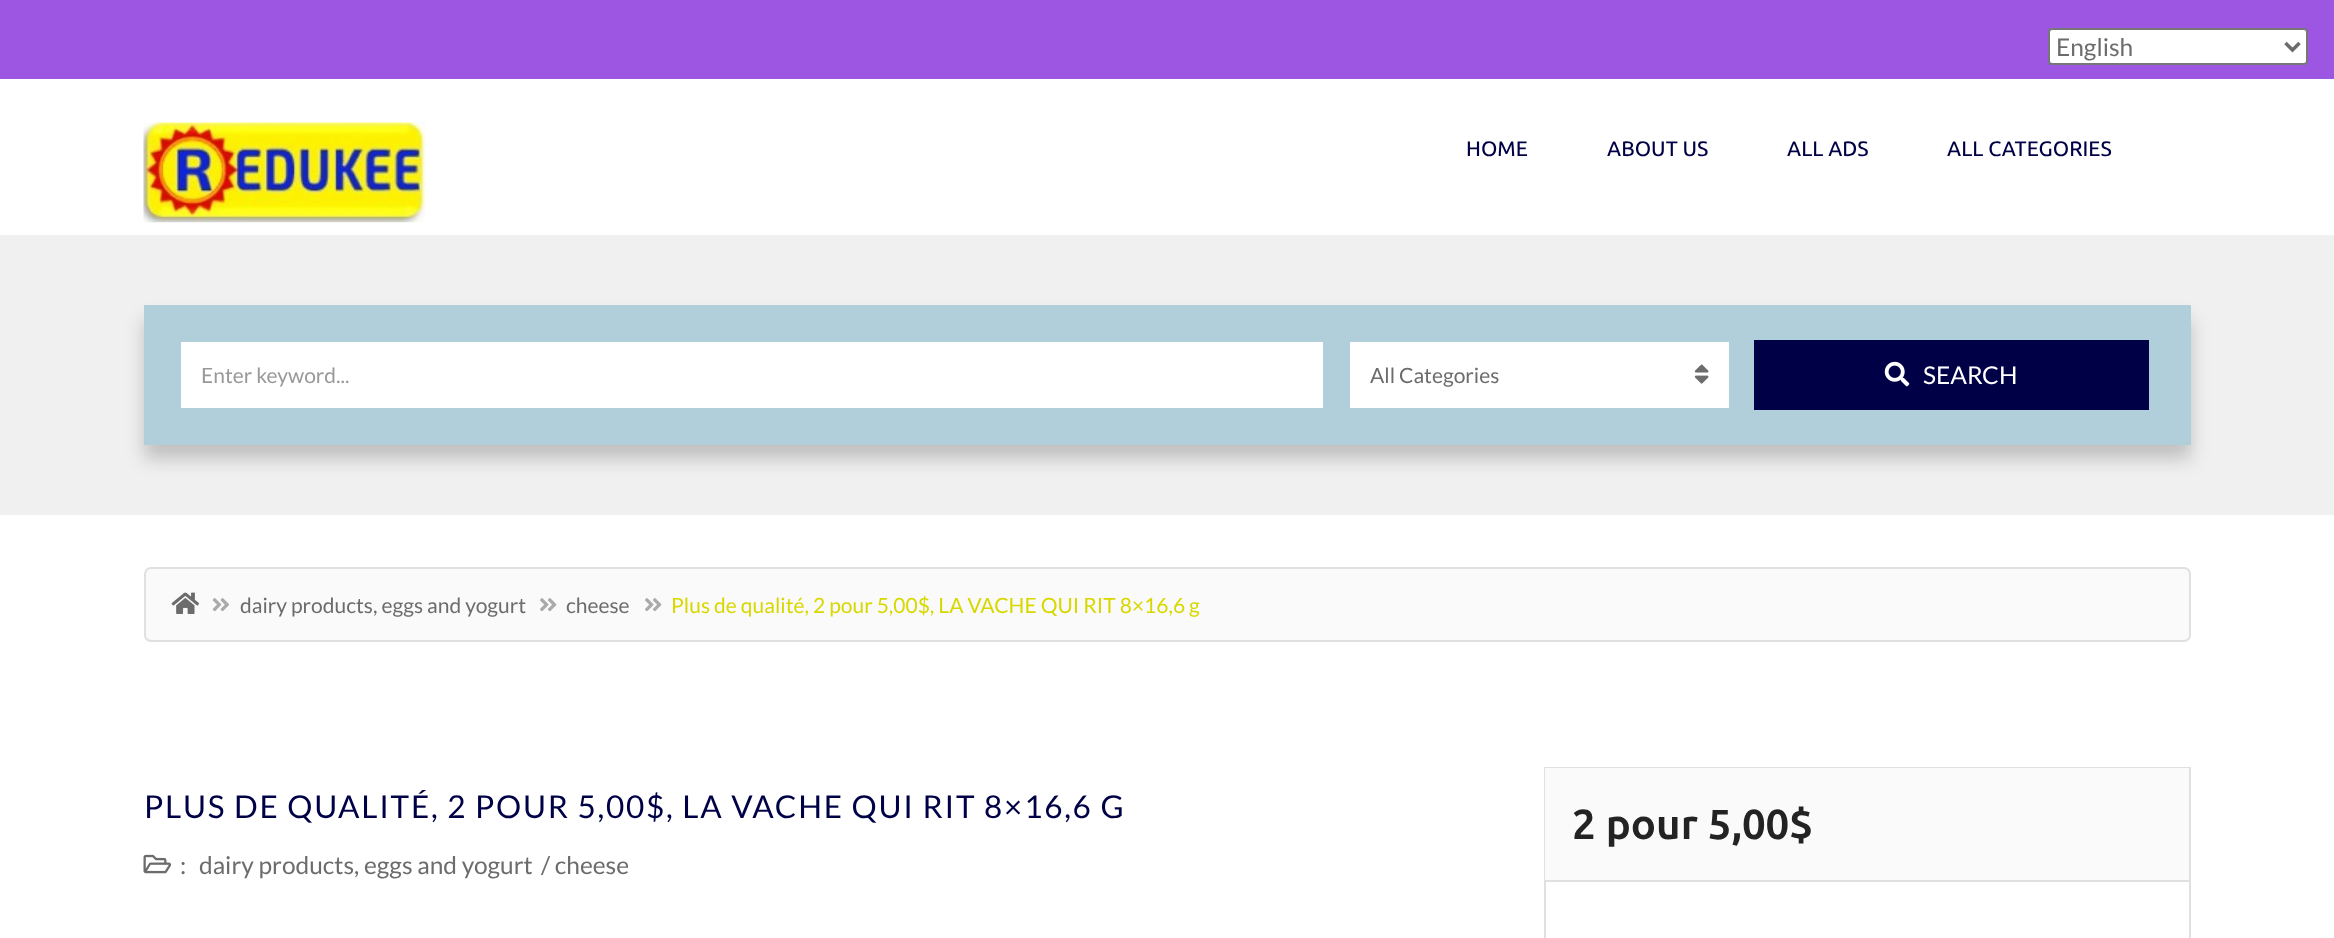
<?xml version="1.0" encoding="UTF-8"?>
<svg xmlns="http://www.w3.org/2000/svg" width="2334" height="938">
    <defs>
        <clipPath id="clip1"><path d="M 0 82 H 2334 V 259 H 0 Z M 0 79 H 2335 V 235 H 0 Z" clip-rule="evenodd"/></clipPath>
        <filter id="blur1" x="-50%" y="-200%" width="200%" height="500%"><feGaussianBlur stdDeviation="9"/></filter>
    </defs>
    <rect width="100%" height="100%" fill="#FFFFFF"/>
    <rect x="0" y="0" width="2334" height="79" fill="#9C56E2"/>
    <rect x="2049" y="29" width="258" height="35" rx="3" fill="#FFFFFF" stroke="#767676" stroke-width="2"/>
    <path d="M 2285.5 43 L 2292.5 50 L 2299.5 43" fill="none" stroke="#6C6C6C" stroke-width="3.5"/>
    <text x="2056" y="56" font-family="Lato" font-size="24.5" fill="#6C6C6C">English</text>
    <g clip-path="url(#clip1)">
        <rect x="18" y="110" width="2299" height="121" fill="#000000" fill-opacity="0.2" filter="url(#blur1)"/>
    </g>
    <image x="143" y="122" width="283" height="101" href="img_01.png"/>
    <text x="1466" y="156" font-family="Ubuntu" font-size="21" font-weight="500" fill="#000047">HOME</text>
    <text x="1607" y="156" font-family="Ubuntu" font-size="21" font-weight="500" fill="#000047">ABOUT US</text>
    <text x="1787" y="156" font-family="Ubuntu" font-size="21" font-weight="500" fill="#000047">ALL ADS</text>
    <text x="1947" y="156" font-family="Ubuntu" font-size="21" font-weight="500" fill="#000047">ALL CATEGORIES</text>
    <rect x="0" y="235" width="2334" height="280" fill="#F0F0F0"/>
    <rect x="144" y="319" width="2047" height="140" fill="#000000" fill-opacity="0.2" filter="url(#blur1)"/>
    <rect x="144" y="305" width="2047" height="140" fill="#B0CFDA"/>
    <rect x="181" y="342" width="1142" height="66" fill="#FFFFFF"/>
    <text x="201" y="383" font-family="Lato" font-size="21" fill="#999999">Enter keyword...</text>
    <rect x="1350" y="342" width="379" height="66" fill="#FFFFFF"/>
    <text x="1370" y="383" font-family="Lato" font-size="21" fill="#6C6C6C">All Categories</text>
    <image x="1694" y="364" width="15" height="20" href="img_02.png"/>
    <rect x="1754" y="340" width="395" height="70" fill="#000047"/>
    <image x="1884" y="361" width="26" height="26" href="img_03.png"/>
    <text x="1923" y="384" font-family="Lato" font-size="24.5" fill="#FFFFFF">SEARCH</text>
    <rect x="145" y="568" width="2045" height="73" rx="6" fill="#FAFAFA" stroke="#E0E0E0" stroke-width="2"/>
    <image x="171" y="592" width="28" height="22" href="img_04.png"/>
    <image x="212" y="598" width="17" height="14" href="img_05.png"/>
    <text x="240" y="613" font-family="Lato" font-size="21" fill="#6C6C6C">dairy products, eggs and yogurt</text>
    <image x="540" y="598" width="17" height="14" href="img_06.png"/>
    <text x="566" y="613" font-family="Lato" font-size="21" fill="#6C6C6C">cheese</text>
    <image x="645" y="598" width="17" height="14" href="img_06.png"/>
    <text x="671" y="613" font-family="Lato" font-size="21" fill="#D8D800">Plus de qualité, 2 pour 5,00$, LA VACHE QUI RIT 8×16,6 g</text>
    <text x="144" y="818" font-family="Lato" font-size="31.5" letter-spacing="1.75" fill="#000047">PLUS DE QUALITÉ, 2 POUR 5,00$, LA VACHE QUI RIT 8×16,6 G</text>
    <image x="143" y="854" width="29" height="20" href="img_07.png"/>
    <text x="180" y="874" font-family="Lato" font-size="24.5" fill="#6C6C6C">:</text>
    <text x="199" y="874" font-family="Lato" font-size="24.5" fill="#6C6C6C">dairy products, eggs and yogurt</text>
    <text x="541" y="874" font-family="Lato" font-size="24.5" fill="#6C6C6C">/ cheese</text>
    <rect x="1545" y="768" width="645" height="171" fill="none" stroke="#E0E0E0" stroke-width="2"/>
    <rect x="1545" y="768" width="644" height="112" fill="#FAFAFA"/>
    <rect x="1545" y="880" width="644" height="2" fill="#E0E0E0"/>
    <text x="1572" y="839" font-family="Ubuntu" font-size="42" font-weight="700" fill="#232323">2 pour 5,00$</text>
</svg>
